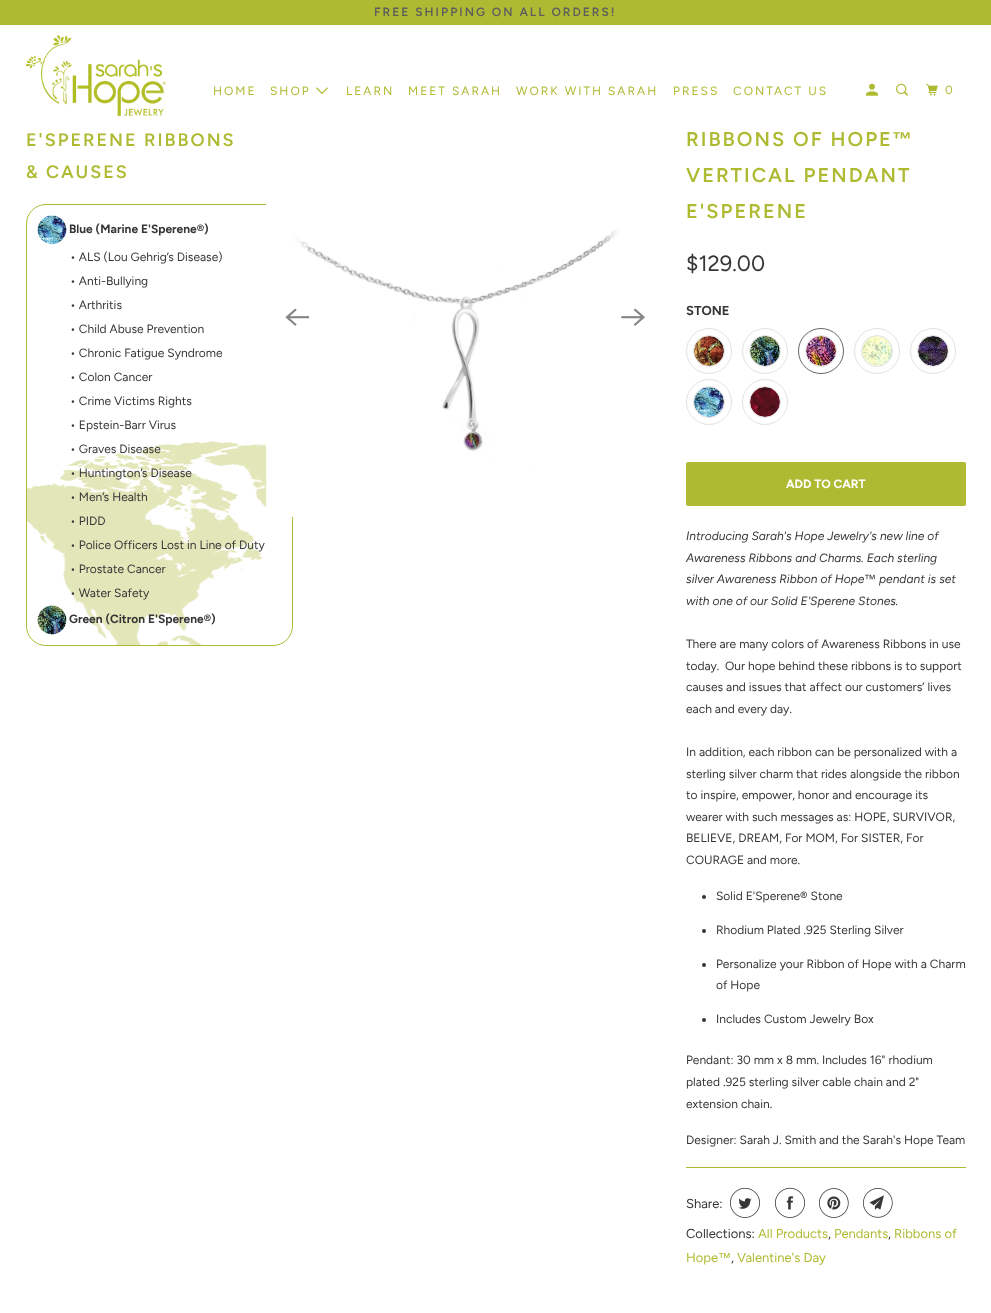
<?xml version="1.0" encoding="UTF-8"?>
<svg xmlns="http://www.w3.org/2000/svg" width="991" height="1313">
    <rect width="100%" height="100%" fill="#FFFFFF"/>
    <rect x="0" y="0" width="991" height="25" fill="#AFBA33"/>
    <text x="374" y="16" font-family="Figtree" font-size="12" font-weight="600" letter-spacing="2" fill="#5D5D5D">FREE SHIPPING ON ALL ORDERS!</text>
    <image x="26" y="35" width="140" height="81" href="img_01.png"/>
    <text x="213" y="95" font-family="Figtree" font-size="12" letter-spacing="2" fill="#AFBA33">HOME</text>
    <text x="270" y="95" font-family="Figtree" font-size="12" letter-spacing="2" fill="#AFBA33">SHOP</text>
    <image x="316" y="87" width="12" height="8" href="img_02.png"/>
    <text x="346" y="95" font-family="Figtree" font-size="12" letter-spacing="2" fill="#AFBA33">LEARN</text>
    <text x="408" y="95" font-family="Figtree" font-size="12" letter-spacing="2" fill="#AFBA33">MEET SARAH</text>
    <text x="516" y="95" font-family="Figtree" font-size="12" letter-spacing="2" fill="#AFBA33">WORK WITH SARAH</text>
    <text x="673" y="95" font-family="Figtree" font-size="12" letter-spacing="2" fill="#AFBA33">PRESS</text>
    <text x="733" y="95" font-family="Figtree" font-size="12" letter-spacing="2" fill="#AFBA33">CONTACT US</text>
    <image x="866" y="83" width="12" height="13" href="img_03.png"/>
    <image x="896" y="83" width="12" height="13" href="img_04.png"/>
    <image x="926" y="84" width="12" height="12" href="img_05.png"/>
    <text x="945" y="94" font-family="Figtree" font-size="12" letter-spacing="2" fill="#AFBA33">0</text>
    <text font-family="Figtree" font-size="18" font-weight="600" letter-spacing="2" fill="#AFBA33">
        <tspan x="26" y="146">E'SPERENE RIBBONS</tspan>
        <tspan x="26" y="178">&amp; CAUSES</tspan>
    </text>
    <image x="27" y="441" width="261" height="204" href="img_06.png"/>
    <rect x="26.5" y="204.5" width="266" height="441" rx="19.5" fill="none" stroke="#AFBA34"/>
    <image x="37" y="215" width="30" height="30" href="img_07.png"/>
    <text x="69" y="233" font-family="Figtree" font-size="12" font-weight="700" fill="#363636">Blue (Marine E'Sperene®)</text>
    <text x="70" y="261" font-family="Figtree" font-size="12" fill="#363636">• ALS (Lou Gehrig’s Disease)</text>
    <text x="70" y="285" font-family="Figtree" font-size="12" fill="#363636">• Anti-Bullying</text>
    <text x="70" y="309" font-family="Figtree" font-size="12" fill="#363636">• Arthritis</text>
    <text x="70" y="333" font-family="Figtree" font-size="12" fill="#363636">• Child Abuse Prevention</text>
    <text x="70" y="357" font-family="Figtree" font-size="12" fill="#363636">• Chronic Fatigue Syndrome</text>
    <text x="70" y="381" font-family="Figtree" font-size="12" fill="#363636">• Colon Cancer</text>
    <text x="70" y="405" font-family="Figtree" font-size="12" fill="#363636">• Crime Victims Rights</text>
    <text x="70" y="429" font-family="Figtree" font-size="12" fill="#363636">• Epstein-Barr Virus</text>
    <text x="70" y="453" font-family="Figtree" font-size="12" fill="#363636">• Graves Disease</text>
    <text x="70" y="477" font-family="Figtree" font-size="12" fill="#363636">• Huntington’s Disease</text>
    <text x="70" y="501" font-family="Figtree" font-size="12" fill="#363636">• Men’s Health</text>
    <text x="70" y="525" font-family="Figtree" font-size="12" fill="#363636">• PIDD</text>
    <text x="70" y="549" font-family="Figtree" font-size="12" fill="#363636">• Police Officers Lost in Line of Duty</text>
    <text x="70" y="573" font-family="Figtree" font-size="12" fill="#363636">• Prostate Cancer</text>
    <text x="70" y="597" font-family="Figtree" font-size="12" fill="#363636">• Water Safety</text>
    <image x="37" y="605" width="30" height="30" href="img_08.png"/>
    <text x="69" y="623" font-family="Figtree" font-size="12" font-weight="700" fill="#363636">Green (Citron E'Sperene®)</text>
    <image x="266" y="204" width="354" height="313" href="img_09.png"/>
    <image x="285" y="308" width="25" height="18" href="img_10.png"/>
    <image x="621" y="308" width="24" height="18" href="img_11.png"/>
    <text x="686" y="146" font-family="Figtree" font-size="20" font-weight="600" letter-spacing="2" fill="#AFBA33">RIBBONS OF HOPE</text>
    <text x="892" y="146" font-family="Liberation Sans" font-size="20" font-weight="700" letter-spacing="2" fill="#AFBA33">™</text>
    <text font-family="Figtree" font-size="20" font-weight="600" letter-spacing="2" fill="#AFBA33">
        <tspan x="686" y="182">VERTICAL PENDANT</tspan>
        <tspan x="686" y="218">E'SPERENE</tspan>
    </text>
    <text x="686" y="271" font-family="Figtree" font-size="22" fill="#363636">$129.00</text>
    <text x="686" y="315" font-family="Figtree" font-size="13" font-weight="700" fill="#363636">STONE</text>
    <circle cx="709" cy="351" r="22.5" fill="none" stroke="#E2E2E2"/>
    <image x="694" y="336" width="30" height="30" href="img_12.png"/>
    <circle cx="709" cy="351" r="15.5" fill="none" stroke="#E2E2E2"/>
    <circle cx="765" cy="351" r="22.5" fill="none" stroke="#E2E2E2"/>
    <image x="750" y="336" width="30" height="30" href="img_13.png"/>
    <circle cx="765" cy="351" r="15.5" fill="none" stroke="#E2E2E2"/>
    <circle cx="821" cy="351" r="22.5" fill="none" stroke="#666666"/>
    <image x="806" y="336" width="30" height="30" href="img_14.png"/>
    <circle cx="821" cy="351" r="15.5" fill="none" stroke="#E2E2E2"/>
    <circle cx="877" cy="351" r="22.5" fill="none" stroke="#E2E2E2"/>
    <image x="862" y="336" width="30" height="30" href="img_15.png"/>
    <circle cx="877" cy="351" r="15.5" fill="none" stroke="#E2E2E2"/>
    <circle cx="933" cy="351" r="22.5" fill="none" stroke="#E2E2E2"/>
    <image x="918" y="336" width="30" height="30" href="img_16.png"/>
    <circle cx="933" cy="351" r="15.5" fill="none" stroke="#E2E2E2"/>
    <circle cx="709" cy="402" r="22.5" fill="none" stroke="#E2E2E2"/>
    <image x="694" y="387" width="30" height="30" href="img_17.png"/>
    <circle cx="709" cy="402" r="15.5" fill="none" stroke="#E2E2E2"/>
    <circle cx="765" cy="402" r="22.5" fill="none" stroke="#E2E2E2"/>
    <image x="750" y="387" width="30" height="30" href="img_18.png"/>
    <circle cx="765" cy="402" r="15.5" fill="none" stroke="#E2E2E2"/>
    <rect x="686" y="462" width="280" height="44" rx="2" fill="#AFBA33"/>
    <text x="786" y="488" font-family="Figtree" font-size="12" font-weight="700" fill="#FFFFFF">ADD TO CART</text>
    <text font-family="Figtree" font-size="12" font-style="italic" fill="#363636">
        <tspan x="686" y="540">Introducing Sarah's Hope Jewelry's new line of</tspan>
        <tspan x="686" y="562">Awareness Ribbons and Charms. Each sterling</tspan>
        <tspan x="686" y="583">silver Awareness Ribbon of Hope</tspan>
    </text>
    <text x="864" y="583" font-family="Liberation Sans" font-size="12" font-style="italic" fill="#363636">™</text>
    <text x="879" y="583" font-family="Figtree" font-size="12" font-style="italic" fill="#363636">pendant is set</text>
    <text x="686" y="605" font-family="Figtree" font-size="12" font-style="italic" fill="#363636">with one of our Solid E'Sperene Stones.</text>
    <text font-family="Figtree" font-size="12" fill="#363636">
        <tspan x="686" y="648">There are many colors of Awareness Ribbons in use</tspan>
        <tspan x="686" y="670">today.</tspan>
    </text>
    <text x="725" y="670" font-family="Figtree" font-size="12" fill="#363636">Our hope behind these ribbons is to support</text>
    <text font-family="Figtree" font-size="12" fill="#363636">
        <tspan x="686" y="691">causes and issues that affect our customers’ lives</tspan>
        <tspan x="686" y="713">each and every day.</tspan>
    </text>
    <text font-family="Figtree" font-size="12" fill="#363636">
        <tspan x="686" y="756">In addition, each ribbon can be personalized with a</tspan>
        <tspan x="686" y="778">sterling silver charm that rides alongside the ribbon</tspan>
        <tspan x="686" y="799">to inspire, empower, honor and encourage its</tspan>
        <tspan x="686" y="821">wearer with such messages as: HOPE, SURVIVOR,</tspan>
        <tspan x="686" y="842">BELIEVE, DREAM, For MOM, For SISTER, For</tspan>
        <tspan x="686" y="864">COURAGE and more.</tspan>
    </text>
    <circle cx="704" cy="897" r="2" fill="#363636"/>
    <text x="716" y="900" font-family="Figtree" font-size="12" fill="#363636">Solid E'Sperene® Stone</text>
    <circle cx="704" cy="931" r="2" fill="#363636"/>
    <text x="716" y="934" font-family="Figtree" font-size="12" fill="#363636">Rhodium Plated .925 Sterling Silver</text>
    <circle cx="704" cy="965" r="2" fill="#363636"/>
    <text font-family="Figtree" font-size="12" fill="#363636">
        <tspan x="716" y="968">Personalize your Ribbon of Hope with a Charm</tspan>
        <tspan x="716" y="989">of Hope</tspan>
    </text>
    <circle cx="704" cy="1020" r="2" fill="#363636"/>
    <text x="716" y="1023" font-family="Figtree" font-size="12" fill="#363636">Includes Custom Jewelry Box</text>
    <text font-family="Figtree" font-size="12" fill="#363636">
        <tspan x="686" y="1064">Pendant: 30 mm x 8 mm. Includes 16" rhodium</tspan>
        <tspan x="686" y="1086">plated .925 sterling silver cable chain and 2"</tspan>
        <tspan x="686" y="1108">extension chain.</tspan>
    </text>
    <text x="686" y="1144" font-family="Figtree" font-size="12" fill="#363636">Designer: Sarah J. Smith and the Sarah's Hope Team</text>
    <rect x="686" y="1167" width="280" height="1" fill="#AFBA33"/>
    <text x="686" y="1208" font-family="Figtree" font-size="13" fill="#363636">Share:</text>
    <image x="730" y="1187" width="30" height="31" href="img_19.png"/>
    <image x="775" y="1187" width="30" height="31" href="img_20.png"/>
    <image x="819" y="1188" width="30" height="30" href="img_21.png"/>
    <image x="863" y="1188" width="30" height="30" href="img_22.png"/>
    <text x="686" y="1238" font-family="Figtree" font-size="13" fill="#363636">Collections:</text>
    <text x="758" y="1238" font-family="Figtree" font-size="13" fill="#AFBA33">All Products</text>
    <text x="828" y="1238" font-family="Figtree" font-size="13" fill="#363636">,</text>
    <text x="834" y="1238" font-family="Figtree" font-size="13" fill="#AFBA33">Pendants</text>
    <text x="888" y="1238" font-family="Figtree" font-size="13" fill="#363636">,</text>
    <text x="894" y="1238" font-family="Figtree" font-size="13" fill="#AFBA33">Ribbons of</text>
    <text x="686" y="1262" font-family="Figtree" font-size="13" fill="#AFBA33">Hope</text>
    <text x="718" y="1262" font-family="Liberation Sans" font-size="13" fill="#AFBA33">™</text>
    <text x="737" y="1262" font-family="Figtree" font-size="13" fill="#AFBA33">Valentine's Day</text>
    <text x="731" y="1262" font-family="Figtree" font-size="13" fill="#363636">,</text>
</svg>
